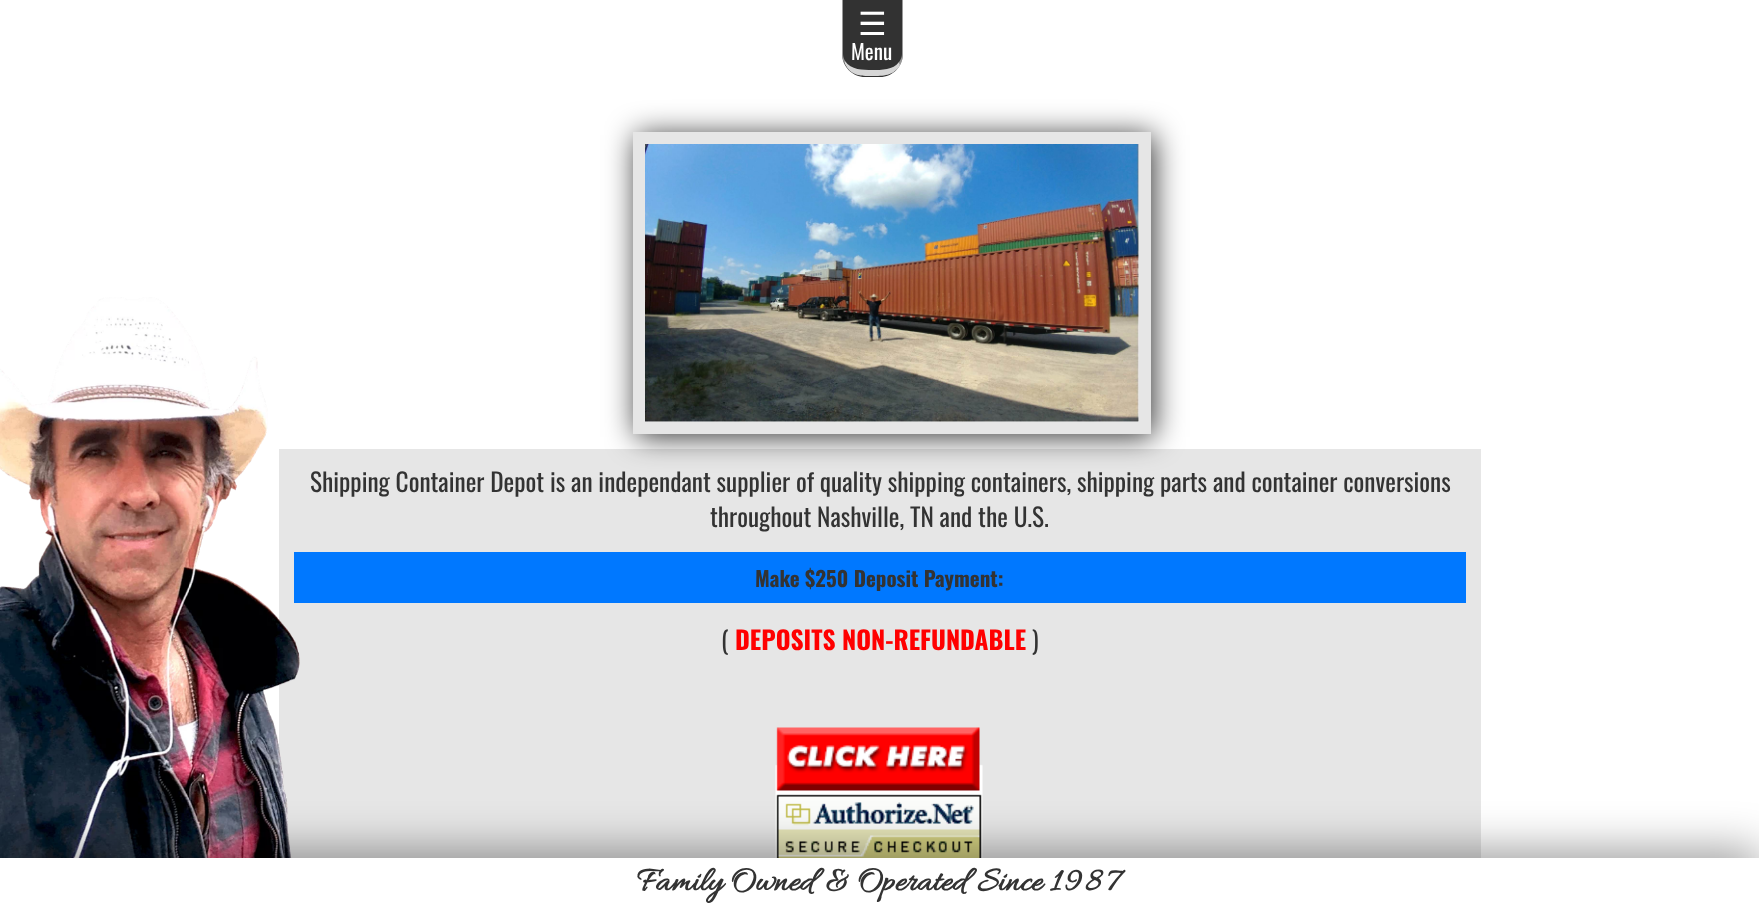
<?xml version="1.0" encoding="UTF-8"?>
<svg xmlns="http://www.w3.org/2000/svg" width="1759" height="909">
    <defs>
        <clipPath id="clip1"><path d="M 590 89 H 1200 V 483 H 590 Z M 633 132 H 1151 V 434 H 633 Z" clip-rule="evenodd"/></clipPath>
        <filter id="blur1" x="-50%" y="-200%" width="200%" height="500%"><feGaussianBlur stdDeviation="15"/></filter>
        <filter id="blur2" x="-50%" y="-200%" width="200%" height="500%"><feGaussianBlur stdDeviation="22.5"/></filter>
    </defs>
    <rect width="100%" height="100%" fill="#FFFFFF"/>
    <path d="M 842 0 H 903 V 54 C 903 66.5 892.5 77 880 77 H 865 C 852.5 77 842 66.5 842 54 Z" fill="#323232"/>
    <path d="M 903 0 H 902 V 54 C 902 57 901 59 899 62 L 900 65 C 902 62 903 58 903 54 Z" fill="#FFFFFF" fill-opacity="0.5"/>
    <path d="M 900 65 C 894 76 883 76 872 76 C 860 76 851 76 845 64 V 61 C 851 70 863 70 872 70 C 882 70 893 70 899 62 Z" fill="#FFFFFF" fill-opacity="0.8"/>
    <path d="M 842 0 H 843 V 54 C 843 57 844 59 845 61 V 64 C 843 61 842 58 842 54 Z" fill="#FFFFFF" fill-opacity="0.5"/>
    <text x="858" y="35" font-family="DejaVu Sans" font-size="32" fill="#FFFFFF">☰</text>
    <text x="851" y="60" font-family="Oswald" font-size="21" fill="#FFFFFF">Menu</text>
    <rect x="279" y="449" width="1202" height="409" fill="#E6E6E6"/>
    <rect x="294" y="552" width="1172" height="51" fill="#0078FF"/>
    <image x="0" y="297" width="300" height="561" href="img_01.png"/>
    <g clip-path="url(#clip1)">
        <rect x="636" y="135" width="518" height="302" fill="#000000" fill-opacity="0.8" filter="url(#blur1)"/>
    </g>
    <rect x="639" y="138" width="506" height="290" fill="none" stroke="#CDCDCD" stroke-opacity="0.5" stroke-width="12"/>
    <image x="645" y="144" width="494" height="278" href="img_02.png"/>
    <text x="310" y="492" font-family="Oswald" font-size="25.35" fill="#333333">Shipping Container Depot is an independant supplier of quality shipping containers, shipping parts and container conversions</text>
    <text x="710" y="527" font-family="Oswald" font-size="25.35" fill="#333333">throughout Nashville, TN and the U.S.</text>
    <text x="755" y="587" font-family="Oswald" font-size="21" font-weight="700" fill="#333333">Make $250 Deposit Payment:</text>
    <text x="721" y="650" font-family="Oswald" font-size="25.35" fill="#333333">(</text>
    <text x="735" y="650" font-family="Oswald" font-size="25.35" font-weight="700" fill="#FF0000">DEPOSITS NON-REFUNDABLE</text>
    <text x="1032" y="650" font-family="Oswald" font-size="25.35" fill="#333333">)</text>
    <image x="775" y="727" width="208" height="131" href="img_03.png"/>
    <rect x="0" y="851" width="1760" height="51" fill="#000000" fill-opacity="0.4" filter="url(#blur2)"/>
    <rect x="0" y="858" width="1759" height="51" fill="#FFFFFF"/>
    <text x="637" y="890" font-family="Allura" font-size="35.1" font-weight="700" fill="#333333">Family Owned &amp; Operated Since</text>
    <text x="1050" y="890" font-family="Allura" font-size="35.1" font-weight="700" letter-spacing="3" fill="#333333">1987</text>
</svg>
